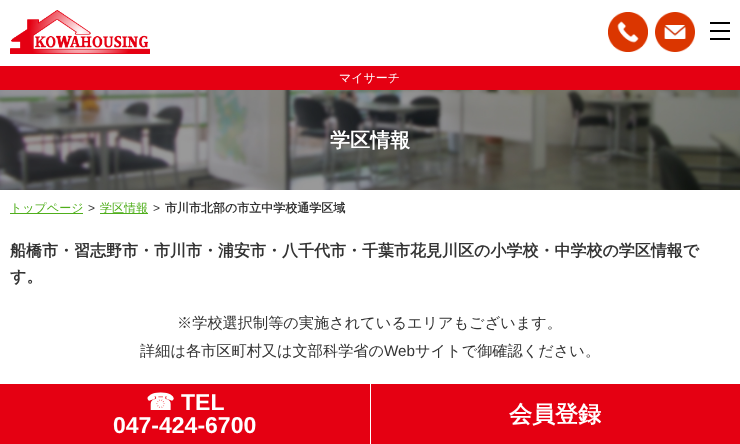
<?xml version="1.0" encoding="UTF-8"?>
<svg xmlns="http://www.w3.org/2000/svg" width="740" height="444">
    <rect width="100%" height="100%" fill="#FFFFFF"/>
    <image x="10" y="10" width="140" height="44" href="img_01.png"/>
    <image x="608" y="12" width="40" height="40" href="img_02.png"/>
    <image x="655" y="12" width="40" height="40" href="img_03.png"/>
    <rect x="710" y="22" width="20" height="2" fill="#000000"/>
    <rect x="710" y="38" width="20" height="2" fill="#000000"/>
    <rect x="710" y="30" width="20" height="2" fill="#000000"/>
    <rect x="0" y="66" width="740" height="24" fill="#E50012"/>
    <text x="339" y="82" font-family="WenQuanYi Zen Hei" font-size="12" font-weight="500" fill="#FFFFFF">マイサーチ</text>
    <image x="0" y="90" width="740" height="100" href="img_04.png"/>
    <text x="330" y="147" font-family="WenQuanYi Zen Hei" font-size="20" font-weight="700" fill="#FFFFFF">学区情報</text>
    <rect x="10" y="213" width="73" height="1" fill="#4FAE1B"/>
    <text x="10" y="212" font-family="WenQuanYi Zen Hei" font-size="12" font-weight="500" fill="#4FAE1B">トップページ</text>
    <text x="88" y="212" font-family="Liberation Sans" font-size="12" fill="#333333">&gt;</text>
    <rect x="100" y="213" width="48" height="1" fill="#4FAE1B"/>
    <text x="100" y="212" font-family="WenQuanYi Zen Hei" font-size="12" font-weight="500" fill="#4FAE1B">学区情報</text>
    <text x="153" y="212" font-family="Liberation Sans" font-size="12" fill="#333333">&gt;</text>
    <text x="165" y="212" font-family="WenQuanYi Zen Hei" font-size="12" font-weight="700" fill="#333333">市川市北部の市立中学校通学区域</text>
    <text font-family="WenQuanYi Zen Hei" font-size="16" font-weight="700" fill="#333333">
        <tspan x="10" y="256">船橋市・習志野市・市川市・浦安市・八千代市・千葉市花見川区の小学校・中学校の学区情報で</tspan>
        <tspan x="10" y="282">す。</tspan>
    </text>
    <text x="177" y="328" font-family="WenQuanYi Zen Hei" font-size="15.2" font-weight="500" fill="#333333">※学校選択制等の実施されているエリアもございます。</text>
    <text x="140" y="356" font-family="WenQuanYi Zen Hei" font-size="15.2" font-weight="500" fill="#333333">詳細は各市区町村又は文部科学省の</text>
    <text x="384" y="356" font-family="Liberation Sans" font-size="15.2" fill="#333333">Web</text>
    <text x="415" y="356" font-family="WenQuanYi Zen Hei" font-size="15.2" font-weight="500" fill="#333333">サイトで御確認ください。</text>
    <rect x="0" y="384" width="740" height="60" fill="#E50012"/>
    <rect x="370" y="384" width="1" height="60" fill="#FFFFFF"/>
    <text x="146" y="410" font-family="DejaVu Sans" font-size="23" font-weight="700" fill="#FFFFFF">☎</text>
    <text x="181" y="410" font-family="Liberation Sans" font-size="23" font-weight="700" fill="#FFFFFF">TEL</text>
    <text x="113" y="433" font-family="Liberation Sans" font-size="23" font-weight="700" fill="#FFFFFF">047-424-6700</text>
    <text x="509" y="422" font-family="WenQuanYi Zen Hei" font-size="23" font-weight="700" fill="#FFFFFF">会員登録</text>
</svg>
